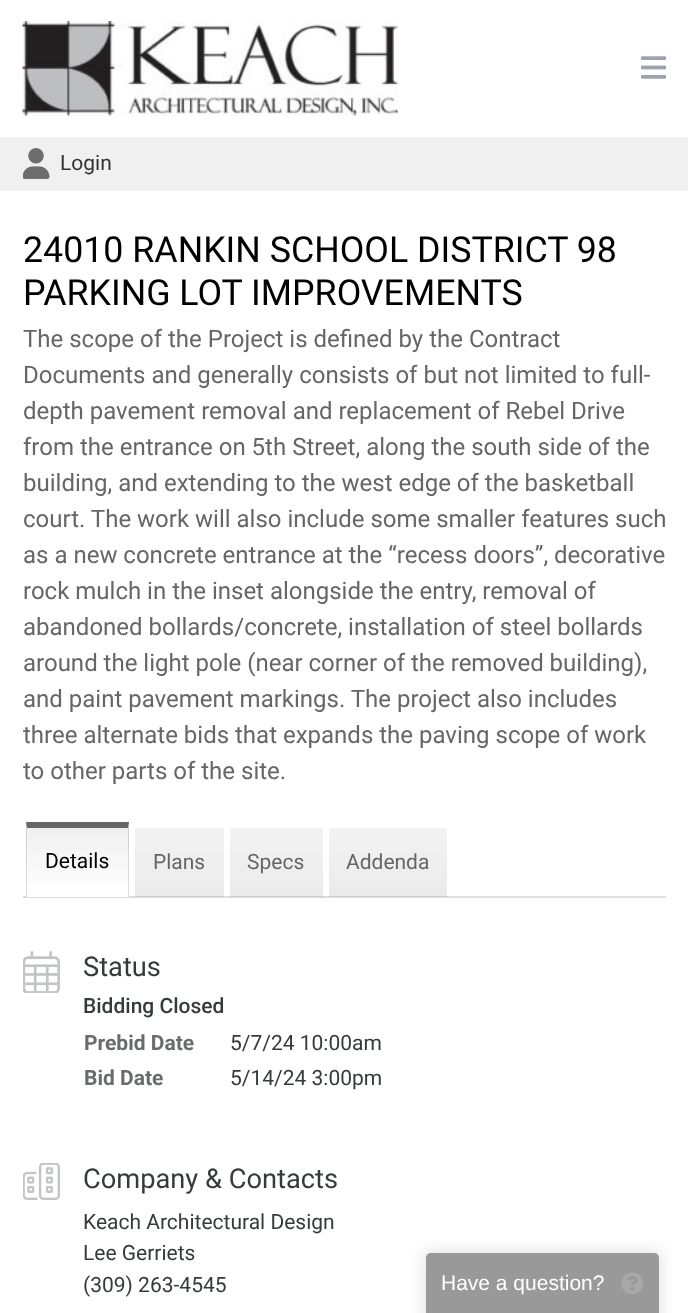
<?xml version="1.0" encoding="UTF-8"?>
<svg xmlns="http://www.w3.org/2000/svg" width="688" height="1313">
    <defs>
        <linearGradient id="g1" gradientUnits="userSpaceOnUse" x1="77" y1="828" x2="77" y2="896"><stop offset="0" stop-color="#F0F0F0"/><stop offset="1" stop-color="#FFFFFF"/></linearGradient>
        <linearGradient id="g2" gradientUnits="userSpaceOnUse" x1="77" y1="896" x2="77" y2="963"><stop offset="0" stop-color="#D1D1D1"/><stop offset="1" stop-color="#DEDEDE"/></linearGradient>
        <linearGradient id="g3" gradientUnits="userSpaceOnUse" x1="179" y1="828" x2="179" y2="897"><stop offset="0" stop-color="#000000" stop-opacity="0.05"/><stop offset="1" stop-color="#000000" stop-opacity="0.08"/></linearGradient>
        <linearGradient id="g4" gradientUnits="userSpaceOnUse" x1="276" y1="828" x2="276" y2="897"><stop offset="0" stop-color="#000000" stop-opacity="0.05"/><stop offset="1" stop-color="#000000" stop-opacity="0.08"/></linearGradient>
        <linearGradient id="g5" gradientUnits="userSpaceOnUse" x1="388" y1="828" x2="388" y2="897"><stop offset="0" stop-color="#000000" stop-opacity="0.05"/><stop offset="1" stop-color="#000000" stop-opacity="0.08"/></linearGradient>
        <clipPath id="clip1"><path d="M 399 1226 H 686 V 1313 H 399 Z M 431 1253 H 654 C 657 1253 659 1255 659 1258 V 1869 H 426 V 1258 C 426 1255 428 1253 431 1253 Z" clip-rule="evenodd"/></clipPath>
        <filter id="blur1" x="-50%" y="-200%" width="200%" height="500%"><feGaussianBlur stdDeviation="7.5"/></filter>
    </defs>
    <rect width="100%" height="100%" fill="#FFFFFF"/>
    <image x="22" y="21" width="376" height="95" href="img_01.png"/>
    <image x="641" y="56" width="25" height="23" href="img_02.png"/>
    <rect x="0" y="137" width="688" height="54" fill="#F0F0F0"/>
    <image x="23" y="148" width="27" height="31" href="img_03.png"/>
    <text x="60" y="170" font-family="Roboto" font-size="21" fill="#333333">Login</text>
    <text font-family="Roboto" font-size="35.75" fill="#000000">
        <tspan x="23" y="262">24010 RANKIN SCHOOL DISTRICT 98</tspan>
        <tspan x="23" y="305">PARKING LOT IMPROVEMENTS</tspan>
    </text>
    <text font-family="Roboto" font-size="24" fill="#666666">
        <tspan x="23" y="347">The scope of the Project is defined by the Contract</tspan>
        <tspan x="23" y="383">Documents and generally consists of but not limited to full-</tspan>
        <tspan x="23" y="419">depth pavement removal and replacement of Rebel Drive</tspan>
        <tspan x="23" y="455">from the entrance on 5th Street, along the south side of the</tspan>
        <tspan x="23" y="491">building, and extending to the west edge of the basketball</tspan>
        <tspan x="23" y="527">court. The work will also include some smaller features such</tspan>
        <tspan x="23" y="563">as a new concrete entrance at the “recess doors”, decorative</tspan>
        <tspan x="23" y="599">rock mulch in the inset alongside the entry, removal of</tspan>
        <tspan x="23" y="635">abandoned bollards/concrete, installation of steel bollards</tspan>
        <tspan x="23" y="671">around the light pole (near corner of the removed building),</tspan>
        <tspan x="23" y="707">and paint pavement markings. The project also includes</tspan>
        <tspan x="23" y="743">three alternate bids that expands the paving scope of work</tspan>
        <tspan x="23" y="779">to other parts of the site.</tspan>
    </text>
    <rect x="23" y="896" width="643" height="2" fill="#DEDEDE"/>
    <rect x="26" y="828" width="103" height="57" fill="url(#g1)"/>
    <rect x="26" y="896" width="103" height="1" fill="url(#g2)"/>
    <path d="M 26 822 H 129 L 128 828 H 27 Z" fill="#666666"/>
    <path d="M 129 822 V 897 L 128 896 V 828 Z" fill="#000000" fill-opacity="0.13"/>
    <path d="M 129 897 H 26 L 27 896 H 128 Z" fill="#FFFFFF"/>
    <path d="M 26 897 V 822 L 27 828 V 896 Z" fill="#000000" fill-opacity="0.13"/>
    <text x="45" y="868" font-family="Roboto" font-size="21" fill="#000000">Details</text>
    <rect x="135" y="828" width="89" height="69" fill="url(#g3)"/>
    <text x="153" y="869" font-family="Roboto" font-size="21" fill="#666666">Plans</text>
    <rect x="230" y="828" width="93" height="69" fill="url(#g4)"/>
    <text x="247" y="869" font-family="Roboto" font-size="21" fill="#666666">Specs</text>
    <rect x="329" y="828" width="118" height="69" fill="url(#g5)"/>
    <text x="346" y="869" font-family="Roboto" font-size="21" fill="#666666">Addenda</text>
    <image x="23" y="951" width="37" height="42" href="img_04.png"/>
    <text x="83" y="976" font-family="Roboto" font-size="27.25" fill="#373A3C">Status</text>
    <text x="83" y="1013" font-family="Roboto" font-size="21" font-weight="500" fill="#373A3C">Bidding Closed</text>
    <text x="84" y="1050" font-family="Roboto" font-size="21" font-weight="700" fill="#696B6D">Prebid Date</text>
    <text x="230" y="1050" font-family="Roboto" font-size="21" fill="#373A3C">5/7/24 10:00am</text>
    <text x="84" y="1085" font-family="Roboto" font-size="21" font-weight="700" fill="#696B6D">Bid Date</text>
    <text x="230" y="1085" font-family="Roboto" font-size="21" fill="#373A3C">5/14/24 3:00pm</text>
    <image x="23" y="1163" width="37" height="37" href="img_05.png"/>
    <text x="83" y="1188" font-family="Roboto" font-size="27.25" fill="#373A3C">Company &amp; Contacts</text>
    <text font-family="Roboto" font-size="21" fill="#373A3C">
        <tspan x="83" y="1229">Keach Architectural Design</tspan>
        <tspan x="83" y="1260">Lee Gerriets</tspan>
        <tspan x="83" y="1292">(309) 263-4545</tspan>
    </text>
    <g clip-path="url(#clip1)">
        <rect x="423" y="1250" width="239" height="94" rx="8" fill="#000000" fill-opacity="0.1" filter="url(#blur1)"/>
    </g>
    <path d="M 431 1253 H 654 C 657 1253 659 1255 659 1258 V 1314 H 426 V 1258 C 426 1255 428 1253 431 1253 Z" fill="#333333" fill-opacity="0.5"/>
    <text x="441" y="1290" font-family="Liberation Sans" font-size="21" fill="#FFFFFF">Have a question?</text>
    <image x="621" y="1272" width="22" height="22" href="img_06.png"/>
</svg>
